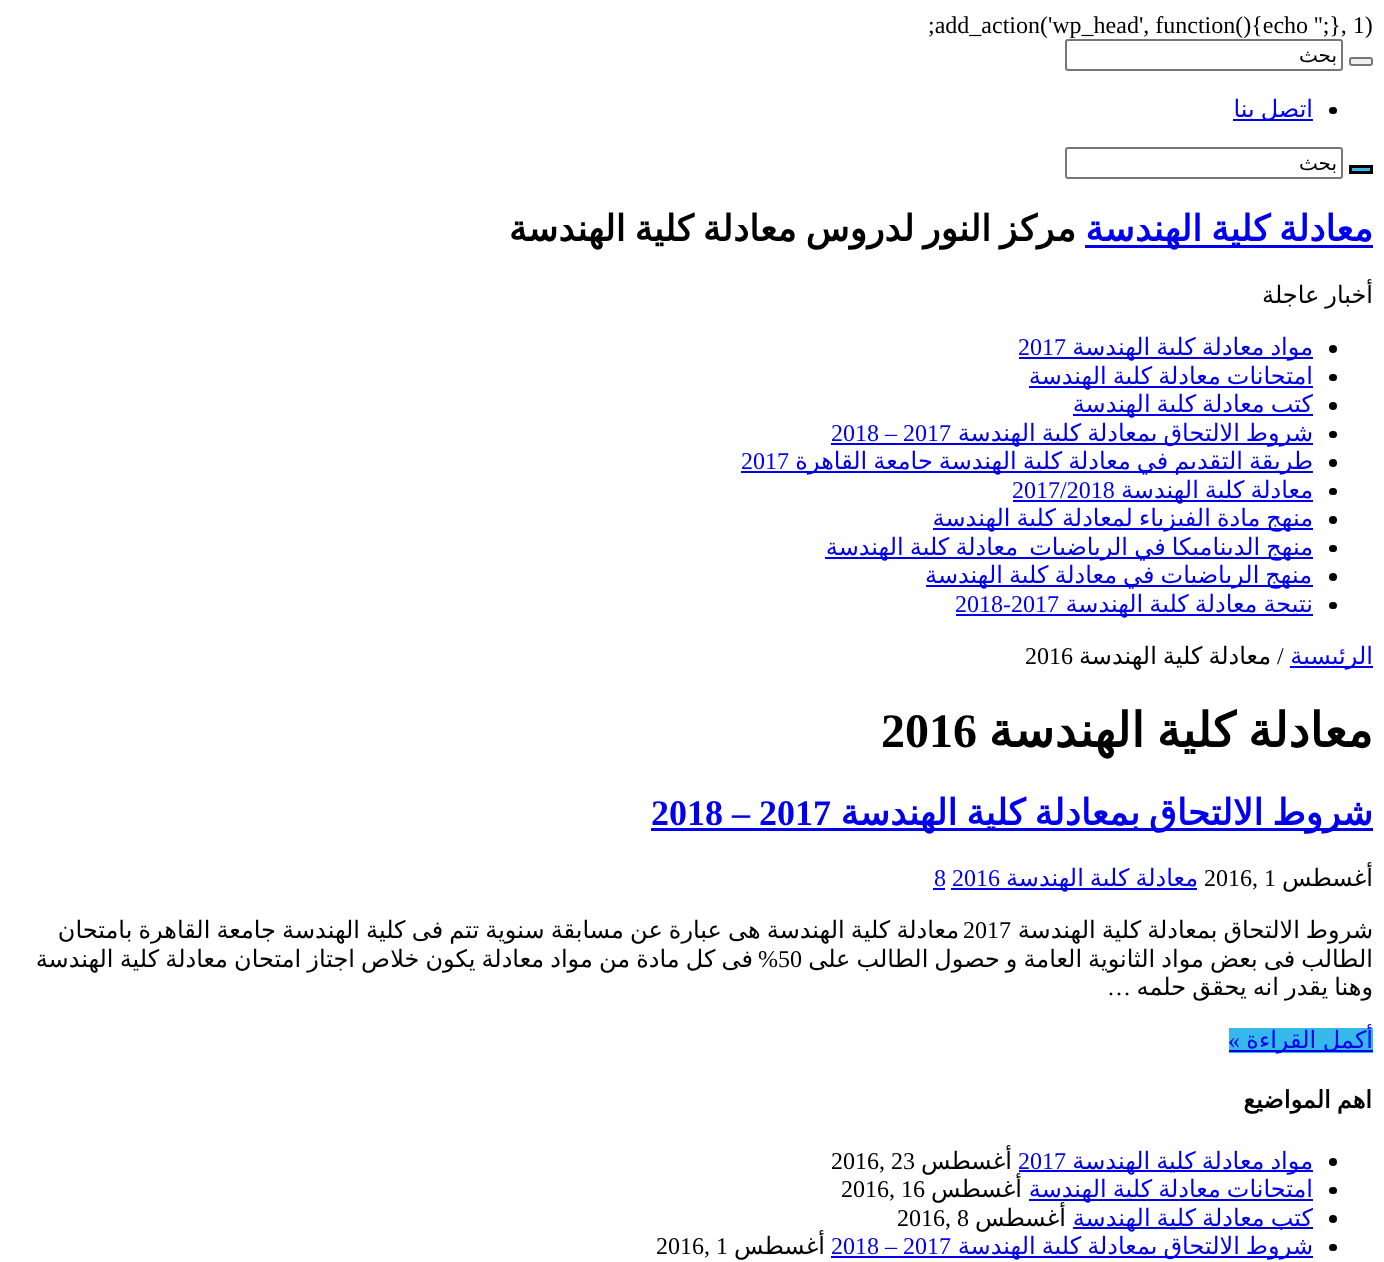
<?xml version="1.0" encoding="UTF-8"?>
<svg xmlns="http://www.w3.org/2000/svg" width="1384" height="1262">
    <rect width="100%" height="100%" fill="#FFFFFF"/>
    <text x="928" y="33" font-family="Liberation Serif" font-size="24" fill="#000000">;add_action('wp_head', function(){echo '';}, 1)</text>
    <rect x="1350" y="58" width="22" height="7" rx="2" fill="#EFEFEF" stroke="#767676" stroke-width="2"/>
    <rect x="1066" y="40" width="276" height="30" rx="2" fill="none" stroke="#767676" stroke-width="2"/>
    <text x="1337" y="62" font-family="DejaVu Sans" font-size="20" direction="rtl" fill="#000000">بحث</text>
    <rect x="1329" y="107" width="8" height="7" rx="3.5" fill="#000000"/>
    <rect x="1233" y="119" width="80" height="2" fill="#0000EE"/>
    <text x="1313" y="117" word-spacing="-1.6" font-family="DejaVu Sans" font-size="24" direction="rtl" fill="#0000EE">اتصل بنا</text>
    <rect x="1350.5" y="166.5" width="21" height="6" fill="#37B8EB" stroke="#000000" stroke-width="3"/>
    <rect x="1066" y="148" width="276" height="30" rx="2" fill="none" stroke="#767676" stroke-width="2"/>
    <text x="1337" y="170" font-family="DejaVu Sans" font-size="20" direction="rtl" fill="#000000">بحث</text>
    <rect x="1085" y="245" width="288" height="3" fill="#0000EE"/>
    <text x="1373" y="241" word-spacing="-2.5" font-family="DejaVu Sans" font-size="36" font-weight="700" direction="rtl" fill="#0000EE">معادلة كلية الهندسة</text>
    <text x="1076" y="241" word-spacing="-2.5" font-family="DejaVu Sans" font-size="36" font-weight="700" direction="rtl" fill="#000000">مركز النور لدروس معادلة كلية الهندسة</text>
    <text x="1373" y="303" word-spacing="-1.6" font-family="DejaVu Sans" font-size="24" direction="rtl" fill="#000000">أخبار عاجلة</text>
    <circle cx="1333" cy="349" r="4" fill="#000000"/>
    <rect x="1019" y="357" width="294" height="2" fill="#0000EE"/>
    <text x="1313" y="355" word-spacing="-1.6" font-family="DejaVu Sans" font-size="24" direction="rtl" fill="#0000EE">مواد معادلة كلية الهندسة</text>
    <text x="1018" y="355" font-family="Liberation Serif" font-size="24" fill="#0000EE">2017</text>
    <rect x="1329" y="374" width="8" height="7" rx="3.5" fill="#000000"/>
    <rect x="1029" y="386" width="284" height="2" fill="#0000EE"/>
    <text x="1313" y="384" word-spacing="-1.6" font-family="DejaVu Sans" font-size="24" direction="rtl" fill="#0000EE">امتحانات معادلة كلية الهندسة</text>
    <circle cx="1333" cy="406" r="4" fill="#000000"/>
    <rect x="1073" y="414" width="240" height="2" fill="#0000EE"/>
    <text x="1313" y="412" word-spacing="-1.6" font-family="DejaVu Sans" font-size="24" direction="rtl" fill="#0000EE">كتب معادلة كلية الهندسة</text>
    <rect x="1329" y="431" width="8" height="7" rx="3.5" fill="#000000"/>
    <rect x="831" y="443" width="482" height="2" fill="#0000EE"/>
    <text x="1313" y="441" word-spacing="-1.6" font-family="DejaVu Sans" font-size="24" direction="rtl" fill="#0000EE">شروط الالتحاق بمعادلة كلية الهندسة</text>
    <text x="831" y="441" font-family="Liberation Serif" font-size="24" fill="#0000EE">2018 – 2017</text>
    <circle cx="1333" cy="463" r="4" fill="#000000"/>
    <rect x="741" y="471" width="572" height="2" fill="#0000EE"/>
    <text x="1313" y="469" word-spacing="-1.6" font-family="DejaVu Sans" font-size="24" direction="rtl" fill="#0000EE">طريقة التقديم في معادلة كلية الهندسة جامعة القاهرة</text>
    <text x="741" y="469" font-family="Liberation Serif" font-size="24" fill="#0000EE">2017</text>
    <rect x="1329" y="488" width="8" height="7" rx="3.5" fill="#000000"/>
    <rect x="1013" y="500" width="300" height="2" fill="#0000EE"/>
    <text x="1313" y="498" word-spacing="-1.6" font-family="DejaVu Sans" font-size="24" direction="rtl" fill="#0000EE">معادلة كلية الهندسة</text>
    <text x="1012" y="498" font-family="Liberation Serif" font-size="24" fill="#0000EE">2017/2018</text>
    <circle cx="1333" cy="520" r="4" fill="#000000"/>
    <rect x="933" y="528" width="380" height="2" fill="#0000EE"/>
    <text x="1313" y="526" word-spacing="-1.6" font-family="DejaVu Sans" font-size="24" direction="rtl" fill="#0000EE">منهج مادة الفيزياء لمعادلة كلية الهندسة</text>
    <rect x="1329" y="545" width="8" height="7" rx="3.5" fill="#000000"/>
    <rect x="825" y="557" width="488" height="2" fill="#0000EE"/>
    <text x="1313" y="555" word-spacing="-1.5" font-family="DejaVu Sans" font-size="24" direction="rtl" fill="#0000EE">منهج الديناميكا في الرياضيات</text>
    <text x="1018" y="555" word-spacing="-1.5" font-family="DejaVu Sans" font-size="24" direction="rtl" fill="#0000EE">معادلة كلية الهندسة</text>
    <circle cx="1333" cy="577" r="4" fill="#000000"/>
    <rect x="926" y="585" width="387" height="2" fill="#0000EE"/>
    <text x="1312" y="583" word-spacing="-1.6" font-family="DejaVu Sans" font-size="24" direction="rtl" fill="#0000EE">منهج الرياضيات في معادلة كلية الهندسة</text>
    <rect x="1329" y="602" width="8" height="7" rx="3.5" fill="#000000"/>
    <rect x="956" y="614" width="357" height="2" fill="#0000EE"/>
    <text x="1313" y="612" word-spacing="-1.6" font-family="DejaVu Sans" font-size="24" direction="rtl" fill="#0000EE">نتيجة معادلة كلية الهندسة</text>
    <text x="955" y="612" font-family="Liberation Serif" font-size="24" fill="#0000EE">2018-2017</text>
    <rect x="1290" y="666" width="83" height="2" fill="#0000EE"/>
    <text x="1373" y="664" font-family="DejaVu Sans" font-size="24" direction="rtl" fill="#0000EE">الرئيسية</text>
    <text x="1277" y="664" font-family="Liberation Serif" font-size="24" fill="#000000">/</text>
    <text x="1271" y="664" word-spacing="-1.6" font-family="DejaVu Sans" font-size="24" direction="rtl" fill="#000000">معادلة كلية الهندسة</text>
    <text x="1025" y="664" font-family="Liberation Serif" font-size="24" fill="#000000">2016</text>
    <text x="1373" y="747" word-spacing="-3" font-family="DejaVu Sans" font-size="48" font-weight="700" direction="rtl" fill="#000000">معادلة كلية الهندسة</text>
    <text x="881" y="747" font-family="Liberation Serif" font-size="48" font-weight="700" fill="#000000">2016</text>
    <rect x="651" y="828" width="722" height="3" fill="#0000EE"/>
    <text x="1373" y="825" word-spacing="-2.5" font-family="DejaVu Sans" font-size="36" font-weight="700" direction="rtl" fill="#0000EE">شروط الالتحاق بمعادلة كلية الهندسة</text>
    <text x="651" y="825" font-family="Liberation Serif" font-size="36" font-weight="700" fill="#0000EE">2018 – 2017</text>
    <text x="1373" y="886" font-family="DejaVu Sans" font-size="24" direction="rtl" fill="#000000">أغسطس</text>
    <text x="1204" y="886" font-family="Liberation Serif" font-size="24" fill="#000000">2016, 1</text>
    <rect x="951" y="888" width="246" height="2" fill="#0000EE"/>
    <text x="1198" y="886" word-spacing="-1.6" font-family="DejaVu Sans" font-size="24" direction="rtl" fill="#0000EE">معادلة كلية الهندسة</text>
    <text x="952" y="886" font-family="Liberation Serif" font-size="24" fill="#0000EE">2016</text>
    <text x="934" y="886" font-family="Liberation Serif" font-size="24" fill="#0000EE">8</text>
    <rect x="933" y="888" width="12" height="2" fill="#0000EE"/>
    <text x="1373" y="938" word-spacing="-1.6" font-family="DejaVu Sans" font-size="24" direction="rtl" fill="#000000">شروط الالتحاق بمعادلة كلية الهندسة</text>
    <text x="959" y="938" word-spacing="-1.5" font-family="DejaVu Sans" font-size="24" direction="rtl" fill="#000000">معادلة كلية الهندسة هى عبارة عن مسابقة سنوية تتم فى كلية الهندسة جامعة القاهرة بامتحان</text>
    <text x="963" y="938" font-family="Liberation Serif" font-size="24" fill="#000000">2017</text>
    <text x="1373" y="967" word-spacing="-1.6" font-family="DejaVu Sans" font-size="24" direction="rtl" fill="#000000">الطالب فى بعض مواد الثانوية العامة و حصول الطالب على</text>
    <text x="778" y="967" font-family="Liberation Serif" font-size="24" fill="#000000">50</text>
    <text x="753" y="967" word-spacing="-1.5" font-family="DejaVu Sans" font-size="24" direction="rtl" fill="#000000">فى كل مادة من مواد معادلة يكون خلاص اجتاز امتحان معادلة كلية الهندسة</text>
    <text x="778" y="967" font-family="Liberation Serif" font-size="24" direction="rtl" fill="#000000">%</text>
    <text x="1373" y="995" word-spacing="-1.5" font-family="DejaVu Sans" font-size="24" direction="rtl" fill="#000000">وهنا يقدر انه يحقق حلمه</text>
    <text x="1131" y="995" font-family="Liberation Serif" font-size="24" direction="rtl" fill="#000000">…</text>
    <rect x="1229" y="1028" width="144" height="25" fill="#37B8EB"/>
    <rect x="1229" y="1050" width="144" height="2" fill="#0000EE"/>
    <text x="1373" y="1048" word-spacing="-1" font-family="DejaVu Sans" font-size="24" direction="rtl" fill="#0000EE">أكمل القراءة</text>
    <text x="1240" y="1048" font-family="Liberation Serif" font-size="24" direction="rtl" fill="#0000EE">»</text>
    <text x="1372" y="1108" word-spacing="-1.6" font-family="DejaVu Sans" font-size="24" font-weight="700" direction="rtl" fill="#000000">اهم المواضيع</text>
    <circle cx="1333" cy="1162" r="4" fill="#000000"/>
    <rect x="1019" y="1170" width="294" height="2" fill="#0000EE"/>
    <text x="1313" y="1169" word-spacing="-1.6" font-family="DejaVu Sans" font-size="24" direction="rtl" fill="#0000EE">مواد معادلة كلية الهندسة</text>
    <text x="1018" y="1169" font-family="Liberation Serif" font-size="24" fill="#0000EE">2017</text>
    <text x="1012" y="1169" font-family="DejaVu Sans" font-size="24" direction="rtl" fill="#000000">أغسطس</text>
    <text x="831" y="1169" font-family="Liberation Serif" font-size="24" fill="#000000">2016, 23</text>
    <rect x="1329" y="1187" width="8" height="7" rx="3.5" fill="#000000"/>
    <rect x="1029" y="1199" width="284" height="2" fill="#0000EE"/>
    <text x="1313" y="1197" word-spacing="-1.6" font-family="DejaVu Sans" font-size="24" direction="rtl" fill="#0000EE">امتحانات معادلة كلية الهندسة</text>
    <text x="1022" y="1197" font-family="DejaVu Sans" font-size="24" direction="rtl" fill="#000000">أغسطس</text>
    <text x="841" y="1197" font-family="Liberation Serif" font-size="24" fill="#000000">2016, 16</text>
    <circle cx="1333" cy="1219" r="4" fill="#000000"/>
    <rect x="1073" y="1227" width="240" height="2" fill="#0000EE"/>
    <text x="1313" y="1226" word-spacing="-1.6" font-family="DejaVu Sans" font-size="24" direction="rtl" fill="#0000EE">كتب معادلة كلية الهندسة</text>
    <text x="1066" y="1226" font-family="DejaVu Sans" font-size="24" direction="rtl" fill="#000000">أغسطس</text>
    <text x="897" y="1226" font-family="Liberation Serif" font-size="24" fill="#000000">2016, 8</text>
    <rect x="1329" y="1244" width="8" height="7" rx="3.5" fill="#000000"/>
    <rect x="831" y="1256" width="482" height="2" fill="#0000EE"/>
    <text x="1313" y="1254" word-spacing="-1.6" font-family="DejaVu Sans" font-size="24" direction="rtl" fill="#0000EE">شروط الالتحاق بمعادلة كلية الهندسة</text>
    <text x="831" y="1254" font-family="Liberation Serif" font-size="24" fill="#0000EE">2018 – 2017</text>
    <text x="825" y="1254" font-family="DejaVu Sans" font-size="24" direction="rtl" fill="#000000">أغسطس</text>
    <text x="656" y="1254" font-family="Liberation Serif" font-size="24" fill="#000000">2016, 1</text>
</svg>
